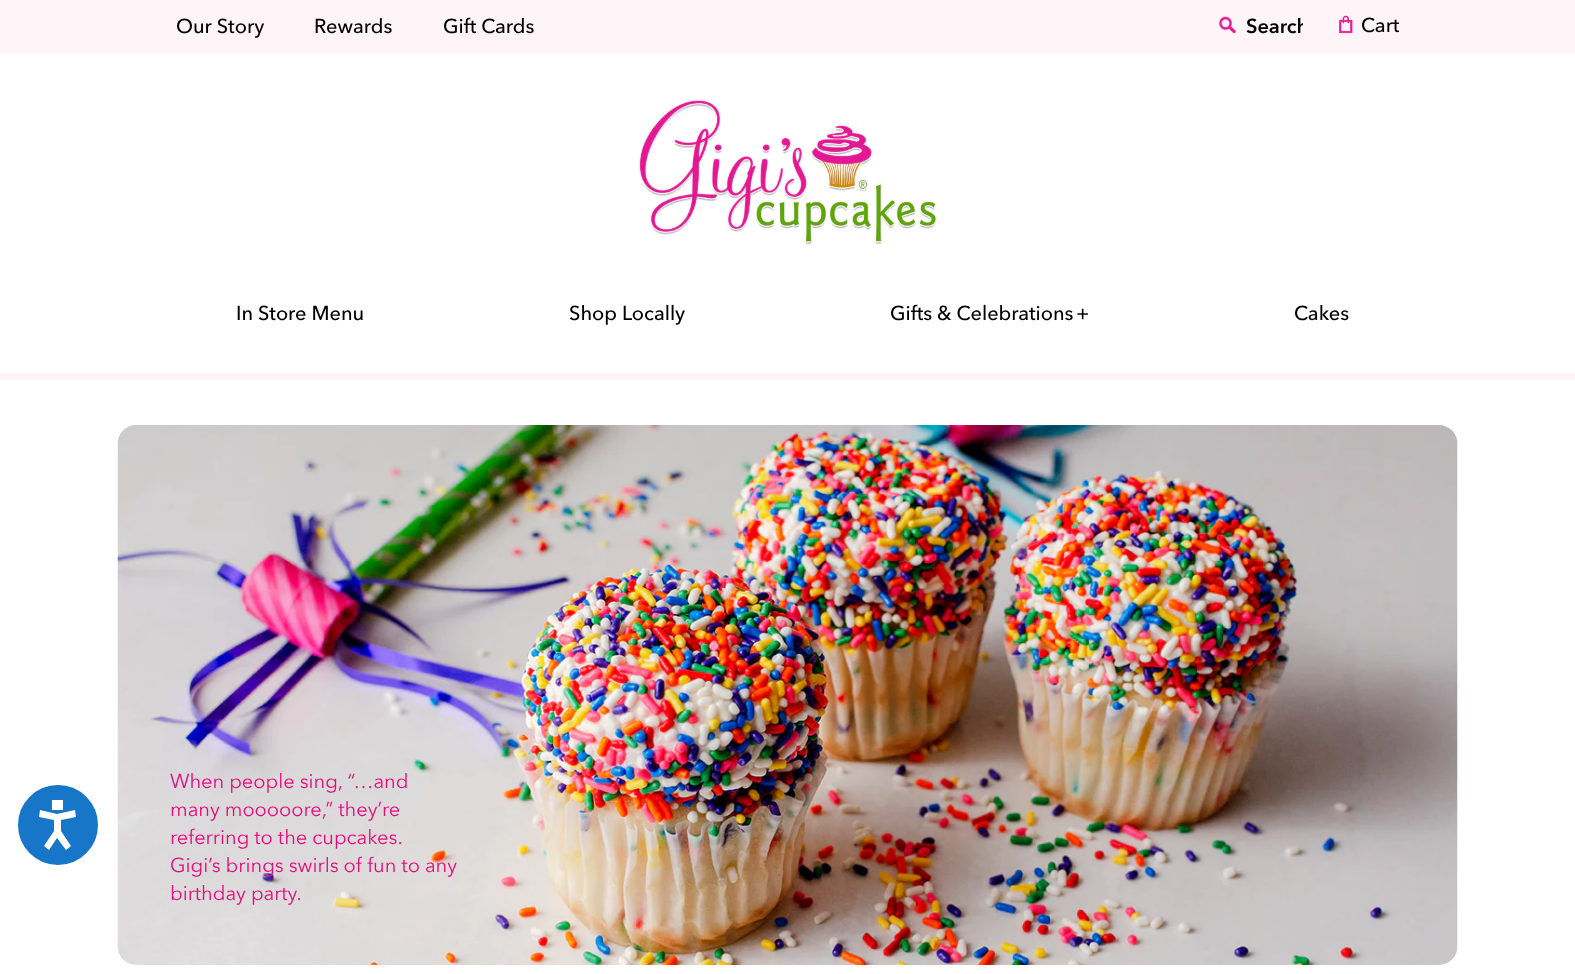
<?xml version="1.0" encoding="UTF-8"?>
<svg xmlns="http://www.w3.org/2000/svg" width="1575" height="974">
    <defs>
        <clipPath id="clip1"><rect x="1245" y="15" width="58" height="23"/></clipPath>
    </defs>
    <rect width="100%" height="100%" fill="#FFFFFF"/>
    <circle cx="58" cy="825" r="42.5" fill="#1876C9" stroke="#FFFFFF" stroke-width="5"/>
    <path d="M 61 820 L 76 817 L 75 810 L 57 814 L 40 810 L 39 817 L 54 820 V 831 L 44 846 L 49 850 L 57 838 L 66 850 L 71 846 L 61 831 Z M 63 800 H 52 V 810 H 63 Z" fill="#FFFFFF"/>
    <rect x="0" y="0" width="1575" height="54" fill="#FFF4F7"/>
    <text x="176" y="33" font-family="Avenir Next" font-size="20" font-weight="500" fill="#000000">Our Story</text>
    <text x="314" y="33" font-family="Avenir Next" font-size="20" font-weight="500" fill="#000000">Rewards</text>
    <text x="443" y="33" font-family="Avenir Next" font-size="20" font-weight="500" fill="#000000">Gift Cards</text>
    <image x="1219" y="16" width="17" height="18" href="img_01.png"/>
    <g clip-path="url(#clip1)">
        <text x="1246" y="33" font-family="Avenir Next" font-size="20" font-weight="600" fill="#000000">Search</text>
    </g>
    <image x="1339" y="15" width="14" height="19" href="img_02.png"/>
    <text x="1361" y="32" font-family="Avenir Next" font-size="20" font-weight="500" fill="#000000">Cart</text>
    <rect x="0" y="373" width="1575" height="7" fill="#FFF4F7"/>
    <image x="639" y="99" width="298" height="146" href="img_03.png"/>
    <text x="236" y="320" font-family="Avenir Next" font-size="20" font-weight="500" fill="#000000">In Store Menu</text>
    <text x="569" y="320" font-family="Avenir Next" font-size="20" font-weight="500" fill="#000000">Shop Locally</text>
    <text x="890" y="320" font-family="Avenir Next" font-size="20" font-weight="500" fill="#000000">Gifts &amp; Celebrations</text>
    <text x="1076" y="320" font-family="Avenir Next" font-size="20" font-weight="500" fill="#000000">+</text>
    <text x="1294" y="320" font-family="Avenir Next" font-size="20" font-weight="500" fill="#000000">Cakes</text>
    <image x="117" y="425" width="1341" height="540" href="img_04.png"/>
    <text font-family="Avenir Next" font-size="20" fill="#E60C7B">
        <tspan x="170" y="788">When people sing, “…and</tspan>
        <tspan x="170" y="816">many mooooore,” they’re</tspan>
        <tspan x="170" y="844">referring to the cupcakes.</tspan>
        <tspan x="170" y="872">Gigi’s brings swirls of fun to any</tspan>
        <tspan x="170" y="900">birthday party.</tspan>
    </text>
</svg>
